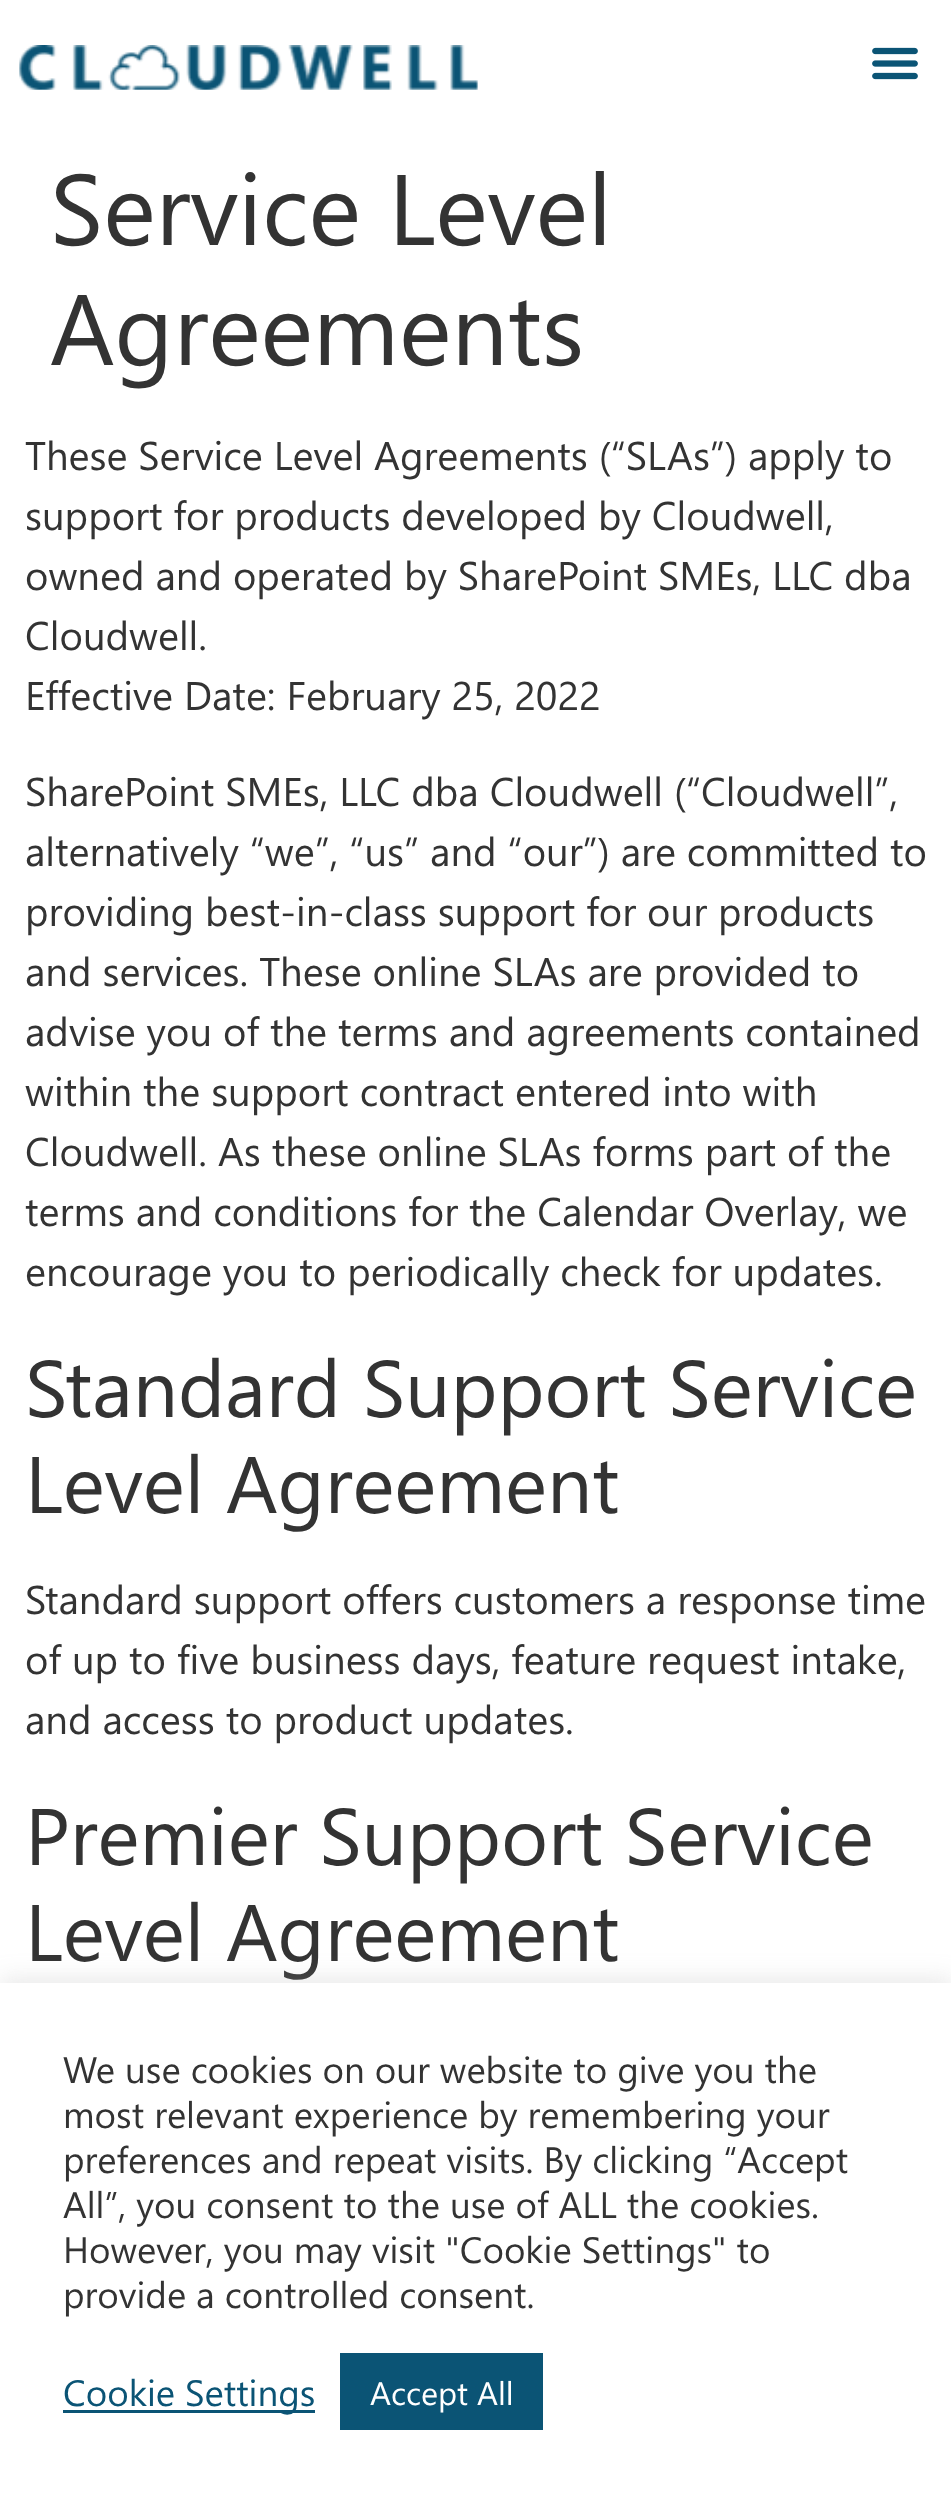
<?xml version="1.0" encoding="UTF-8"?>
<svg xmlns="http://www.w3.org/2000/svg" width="951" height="2503">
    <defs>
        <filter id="blur1" x="-50%" y="-200%" width="200%" height="500%"><feGaussianBlur stdDeviation="12.5"/></filter>
    </defs>
    <rect width="100%" height="100%" fill="#FFFFFF"/>
    <image x="19" y="45" width="459" height="45" href="img_01.png"/>
    <image x="872" y="47" width="46" height="33" href="img_02.png"/>
    <text font-family="Segoe UI" font-size="100" fill="#333333">
        <tspan x="50" y="245">Service Level</tspan>
        <tspan x="50" y="365">Agreements</tspan>
    </text>
    <text font-family="Segoe UI" font-size="40" fill="#333333">
        <tspan x="25" y="470">These Service Level Agreements (“SLAs”) apply to</tspan>
        <tspan x="25" y="530">support for products developed by Cloudwell,</tspan>
        <tspan x="25" y="590">owned and operated by SharePoint SMEs, LLC dba</tspan>
        <tspan x="25" y="650">Cloudwell.</tspan>
        <tspan x="25" y="710">Effective Date: February 25, 2022</tspan>
    </text>
    <text font-family="Segoe UI" font-size="40" fill="#333333">
        <tspan x="25" y="806">SharePoint SMEs, LLC dba Cloudwell (“Cloudwell”,</tspan>
        <tspan x="25" y="866">alternatively “we”, “us” and “our”) are committed to</tspan>
        <tspan x="25" y="926">providing best-in-class support for our products</tspan>
        <tspan x="25" y="986">and services. These online SLAs are provided to</tspan>
        <tspan x="25" y="1046">advise you of the terms and agreements contained</tspan>
        <tspan x="25" y="1106">within the support contract entered into with</tspan>
        <tspan x="25" y="1166">Cloudwell. As these online SLAs forms part of the</tspan>
        <tspan x="25" y="1226">terms and conditions for the Calendar Overlay, we</tspan>
        <tspan x="25" y="1286">encourage you to periodically check for updates.</tspan>
    </text>
    <text font-family="Segoe UI" font-size="80" fill="#333333">
        <tspan x="25" y="1417">Standard Support Service</tspan>
        <tspan x="25" y="1513">Level Agreement</tspan>
    </text>
    <text font-family="Segoe UI" font-size="40" fill="#333333">
        <tspan x="25" y="1614">Standard support offers customers a response time</tspan>
        <tspan x="25" y="1674">of up to five business days, feature request intake,</tspan>
        <tspan x="25" y="1734">and access to product updates.</tspan>
    </text>
    <text font-family="Segoe UI" font-size="80" fill="#333333">
        <tspan x="25" y="1865">Premier Support Service</tspan>
        <tspan x="25" y="1961">Level Agreement</tspan>
    </text>
    <rect x="0" y="1980" width="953" height="523" fill="#ACABAB" fill-opacity="0.3" filter="url(#blur1)"/>
    <rect x="0" y="1983" width="951" height="520" fill="#FFFFFF"/>
    <text font-family="Segoe UI" font-size="36.7" fill="#333333">
        <tspan x="63" y="2083">We use cookies on our website to give you the</tspan>
        <tspan x="63" y="2128">most relevant experience by remembering your</tspan>
        <tspan x="63" y="2173">preferences and repeat visits. By clicking “Accept</tspan>
        <tspan x="63" y="2218">All”, you consent to the use of ALL the cookies.</tspan>
        <tspan x="63" y="2263">However, you may visit "Cookie Settings" to</tspan>
        <tspan x="63" y="2308">provide a controlled consent.</tspan>
    </text>
    <rect x="63" y="2410" width="252" height="3" fill="#0B5475"/>
    <text x="63" y="2406" font-family="Segoe UI" font-size="36.7" fill="#0B5475">Cookie Settings</text>
    <rect x="340" y="2353" width="203" height="77" fill="#0B5475"/>
    <text x="370" y="2405" font-family="Segoe UI" font-size="32.5" fill="#FFFFFF">Accept All</text>
</svg>
